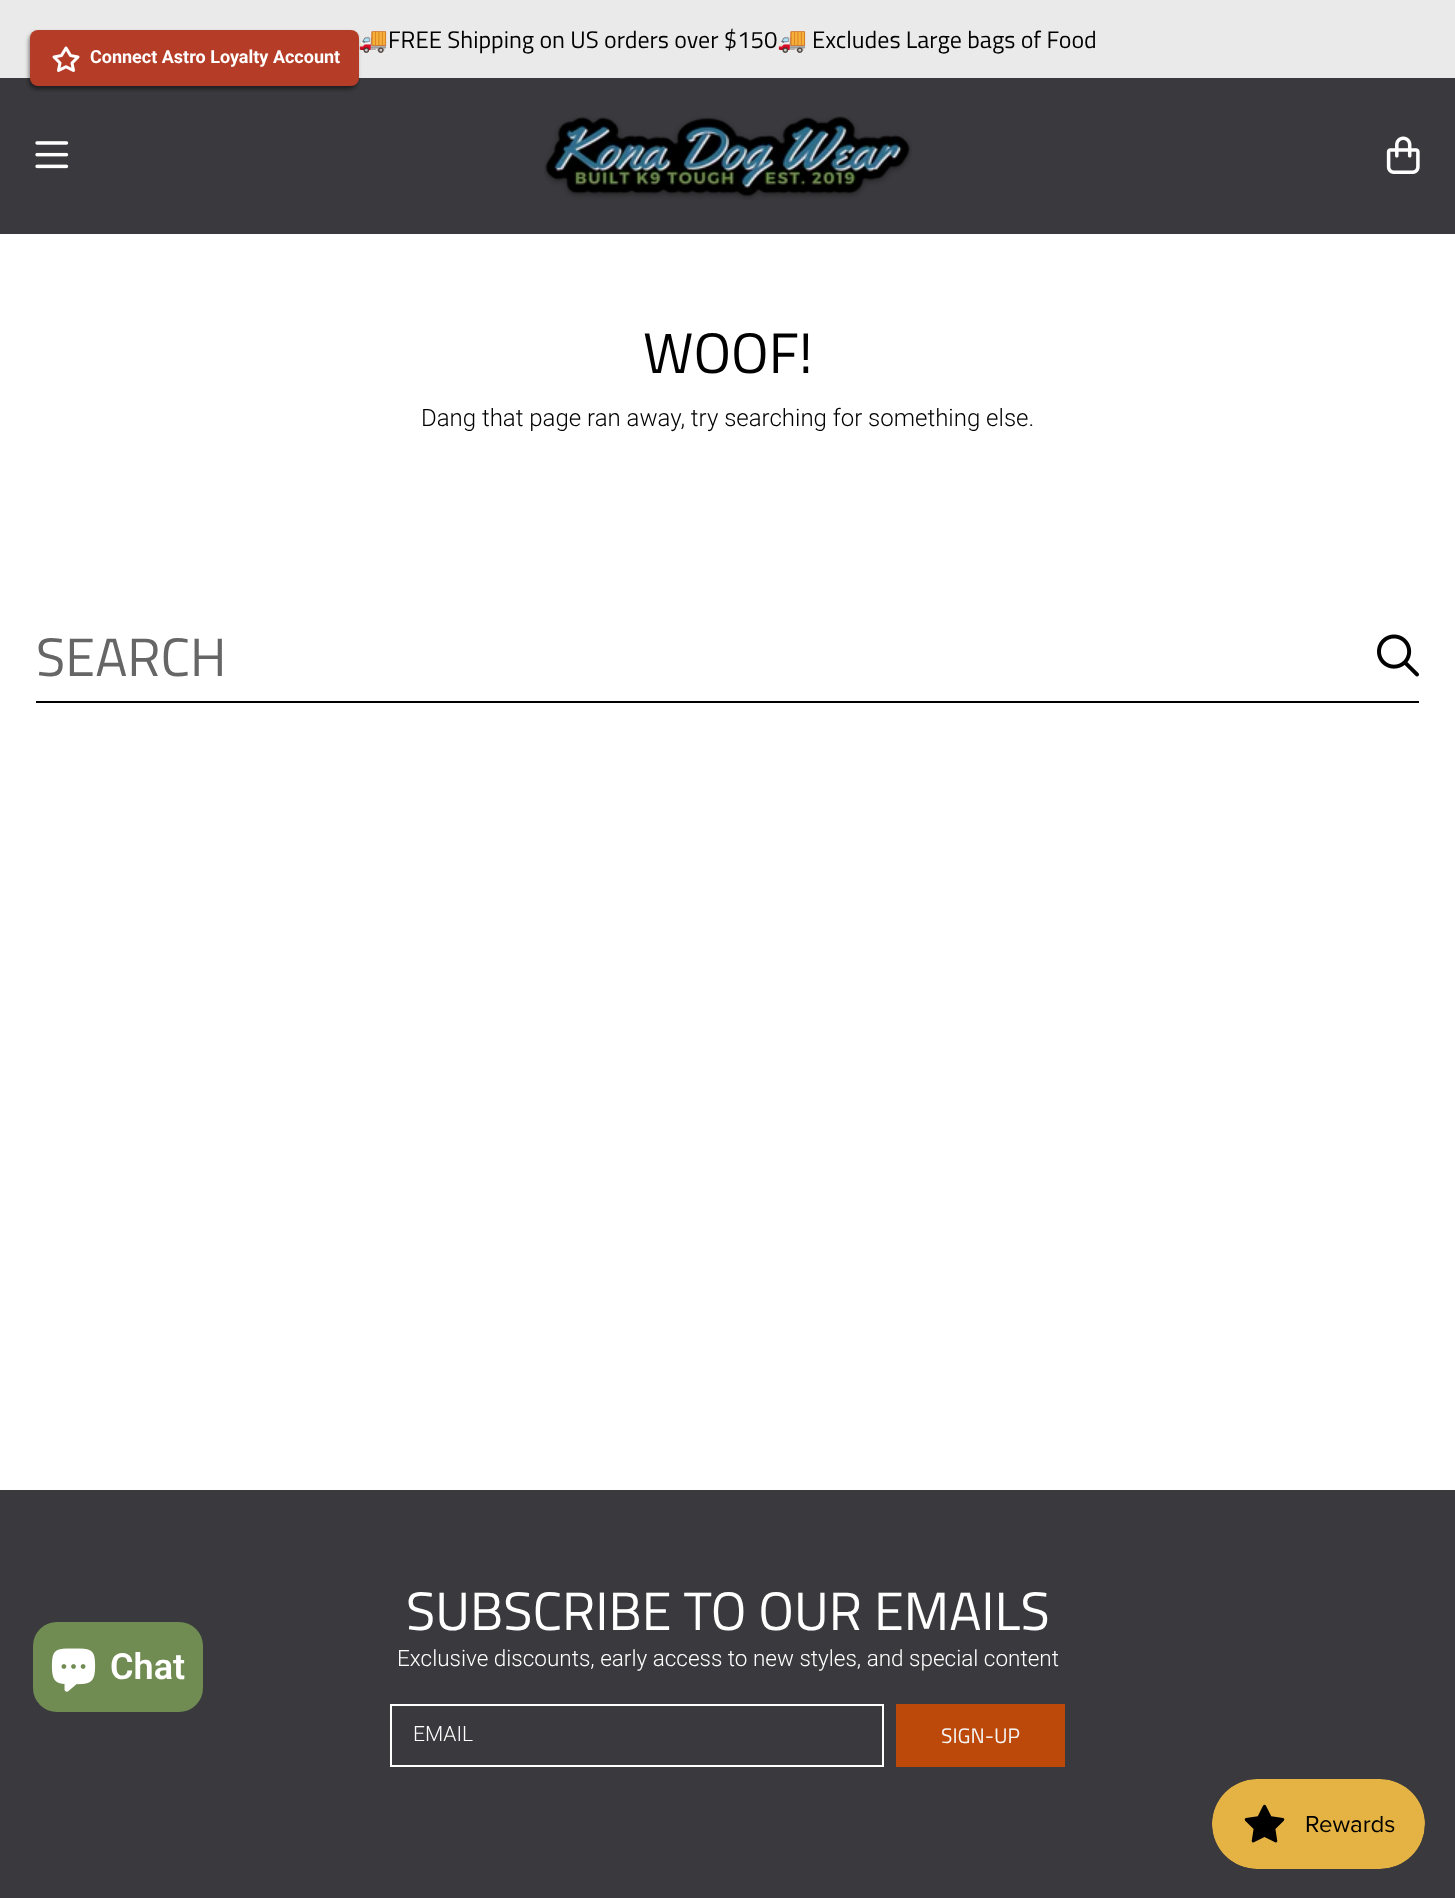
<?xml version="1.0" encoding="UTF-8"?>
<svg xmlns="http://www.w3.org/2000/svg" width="1455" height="1898">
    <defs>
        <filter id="blur1" x="-50%" y="-200%" width="200%" height="500%"><feGaussianBlur stdDeviation="2"/></filter>
    </defs>
    <rect width="100%" height="100%" fill="#FFFFFF"/>
    <rect x="0" y="0" width="1455" height="78" fill="#EAEAEA"/>
    <text x="358" y="48" font-family="Noto Color Emoji" font-size="24" fill="#000000">🚚</text>
    <text x="388" y="48" font-family="Titillium Web" font-size="24" fill="#000000">FREE Shipping on US orders over $150</text>
    <text x="777" y="48" font-family="Noto Color Emoji" font-size="24" fill="#000000">🚚</text>
    <text x="812" y="48" font-family="Titillium Web" font-size="24" fill="#000000">Excludes Large bags of Food</text>
    <rect x="0" y="78" width="1455" height="156" fill="#3A3A3E"/>
    <rect x="29" y="33" width="328" height="56" rx="8" fill="#000000" fill-opacity="0.5" filter="url(#blur1)"/>
    <rect x="30" y="30" width="329" height="56" rx="8" fill="#B53C27"/>
    <image x="52" y="46" width="28" height="26" href="img_01.png"/>
    <text x="90" y="63" font-family="Roboto" font-size="18" font-weight="700" fill="#FFFFFF">Connect Astro Loyalty Account</text>
    <image x="35" y="141" width="34" height="28" href="img_02.png"/>
    <image x="544" y="116" width="368" height="84" href="img_03.png"/>
    <image x="1386" y="136" width="34" height="38" href="img_04.png"/>
    <text x="643" y="373" font-family="Titillium Web" font-size="57" fill="#000000">WOOF!</text>
    <text x="421" y="426" font-family="Roboto" font-size="24" font-weight="300" fill="#000000">Dang that page ran away, try searching for something else.</text>
    <rect x="36" y="701" width="1383" height="2" fill="#000000"/>
    <text x="36" y="676" font-family="Titillium Web" font-size="54" fill="#666666">SEARCH</text>
    <image x="1377" y="634" width="42" height="43" href="img_05.png"/>
    <rect x="0" y="1490" width="1455" height="408" fill="#3A3A3E"/>
    <text x="406" y="1630" font-family="Titillium Web" font-size="54" fill="#FFFFFF">SUBSCRIBE TO OUR EMAILS</text>
    <text x="397" y="1666" font-family="Roboto" font-size="22.5" font-weight="300" fill="#FFFFFF">Exclusive discounts, early access to new styles, and special content</text>
    <rect x="391" y="1705" width="492" height="61" fill="none" stroke="#FFFFFF" stroke-width="2"/>
    <text x="413" y="1741" font-family="Roboto" font-size="21" font-weight="300" fill="#FFFFFF">EMAIL</text>
    <rect x="896" y="1704" width="169" height="63" fill="#BC4909"/>
    <text x="941" y="1743" font-family="Titillium Web" font-size="21" fill="#F5F5F5">SIGN-UP</text>
    <rect x="33" y="1622" width="170" height="90" rx="24" fill="#718C52"/>
    <image x="51" y="1648" width="45" height="44" href="img_06.png"/>
    <text x="110" y="1679" font-family="Roboto" font-size="36" font-weight="600" fill="#FFFFFF">Chat</text>
    <image x="1212" y="1779" width="213" height="90" href="img_07.png"/>
</svg>
